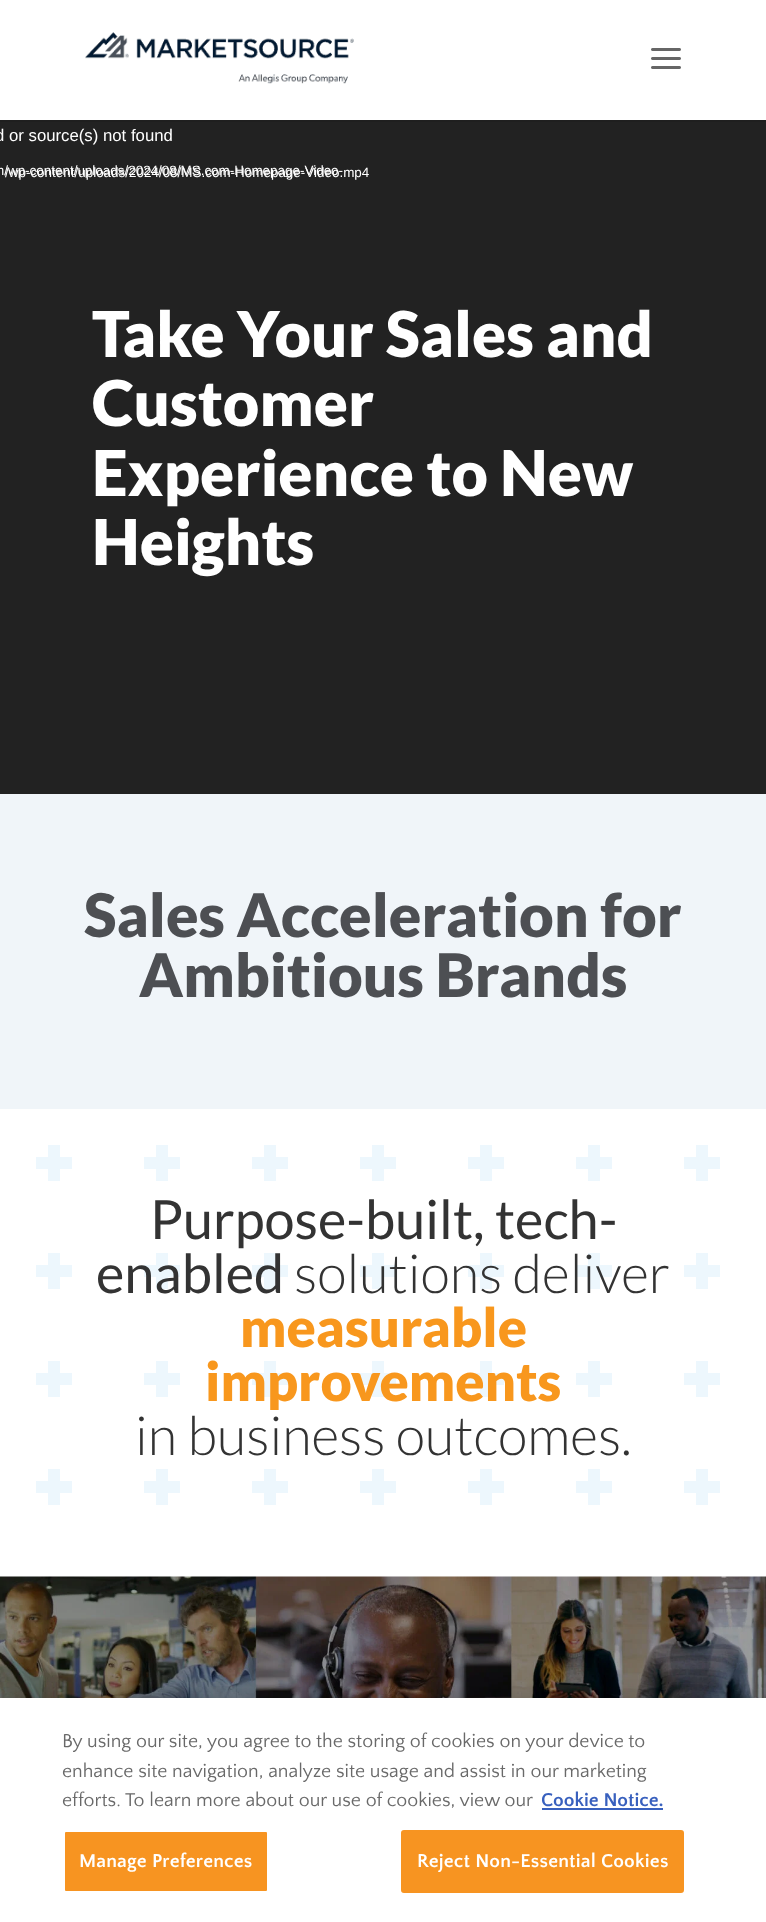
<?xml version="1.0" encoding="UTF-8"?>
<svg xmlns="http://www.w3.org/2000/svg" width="766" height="1922">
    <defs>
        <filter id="blur1" x="-50%" y="-200%" width="200%" height="500%"><feGaussianBlur stdDeviation="13.5"/></filter>
    </defs>
    <rect width="100%" height="100%" fill="#FFFFFF"/>
    <path d="M 0 120 V 122 H 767 V 2 H 766 V 120 Z" fill="#1F1F1F"/>
    <image x="85" y="32" width="269" height="52" href="img_01.png"/>
    <image x="651" y="48" width="30" height="21" href="img_02.png"/>
    <rect x="0" y="122" width="766" height="672" fill="#222222"/>
    <text x="-5" y="141" font-family="Liberation Sans" font-size="16.75" fill="#FFFFFF">d or source(s) not found</text>
    <text x="5" y="177" font-family="Liberation Sans" font-size="13.45" fill="#FFFFFF">/wp-content/uploads/2024/08/MS.com-Homepage-Video.mp4</text>
    <text x="-7" y="175" font-family="Liberation Sans" font-size="13.45" fill="#FFFFFF">m/wp-content/uploads/2024/08/MS.com-Homepage-Video-</text>
    <text font-family="Lato" font-size="63" font-weight="900" fill="#FFFFFF">
        <tspan x="92" y="357">Take Your Sales and</tspan>
        <tspan x="92" y="426">Customer</tspan>
        <tspan x="92" y="496">Experience to New</tspan>
        <tspan x="92" y="565">Heights</tspan>
    </text>
    <rect x="0" y="794" width="766" height="315" fill="#F0F5F9"/>
    <text x="84" y="937" font-family="Lato" font-size="60" font-weight="900" fill="#4D4F53">Sales Acceleration for</text>
    <text x="139" y="997" font-family="Lato" font-size="60" font-weight="900" fill="#4D4F53">Ambitious Brands</text>
    <image x="36" y="1145" width="684" height="360" href="img_03.png"/>
    <text x="150" y="1239" font-family="Lato" font-size="54" fill="#333333">Purpose-built, tech-</text>
    <text x="96" y="1293" font-family="Lato" font-size="54" fill="#333333">enabled</text>
    <text x="294" y="1293" font-family="Lato" font-size="54" font-weight="300" fill="#333333">solutions deliver</text>
    <text x="240" y="1347" font-family="Lato" font-size="54" font-weight="900" fill="#F8971D">measurable</text>
    <text x="205" y="1401" font-family="Lato" font-size="54" font-weight="900" fill="#F8971D">improvements</text>
    <text x="135" y="1455" font-family="Lato" font-size="54" font-weight="300" fill="#333333">in business outcomes.</text>
    <image x="0" y="1576" width="766" height="122" href="img_04.png"/>
    <rect x="0" y="1698" width="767" height="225" fill="#000000" fill-opacity="0.2" filter="url(#blur1)"/>
    <rect x="0" y="1698" width="766" height="224" fill="#FFFFFF"/>
    <text font-family="Quattrocento Sans" font-size="19.5" fill="#696969">
        <tspan x="62" y="1747">By using our site, you agree to the storing of cookies on your device to</tspan>
        <tspan x="62" y="1777">enhance site navigation, analyze site usage and assist in our marketing</tspan>
        <tspan x="62" y="1806">efforts. To learn more about our use of cookies, view our</tspan>
    </text>
    <text x="541" y="1806" font-family="Quattrocento Sans" font-size="19.5" font-weight="700" fill="#3860BE">Cookie Notice.</text>
    <rect x="542" y="1808" width="121" height="2" fill="#3860BE"/>
    <rect x="64" y="1831" width="204" height="61" rx="2" fill="#F79421" stroke="#FFFFFF" stroke-width="2"/>
    <text x="79" y="1867" font-family="Quattrocento Sans" font-size="19.5" font-weight="700" letter-spacing="0.2" fill="#FFFFFF">Manage Preferences</text>
    <rect x="402" y="1831" width="281" height="61" rx="2" fill="#F79421" stroke="#F79421" stroke-width="2"/>
    <text x="417" y="1867" font-family="Quattrocento Sans" font-size="19.5" font-weight="700" letter-spacing="0.2" fill="#FFFFFF">Reject Non-Essential Cookies</text>
</svg>
